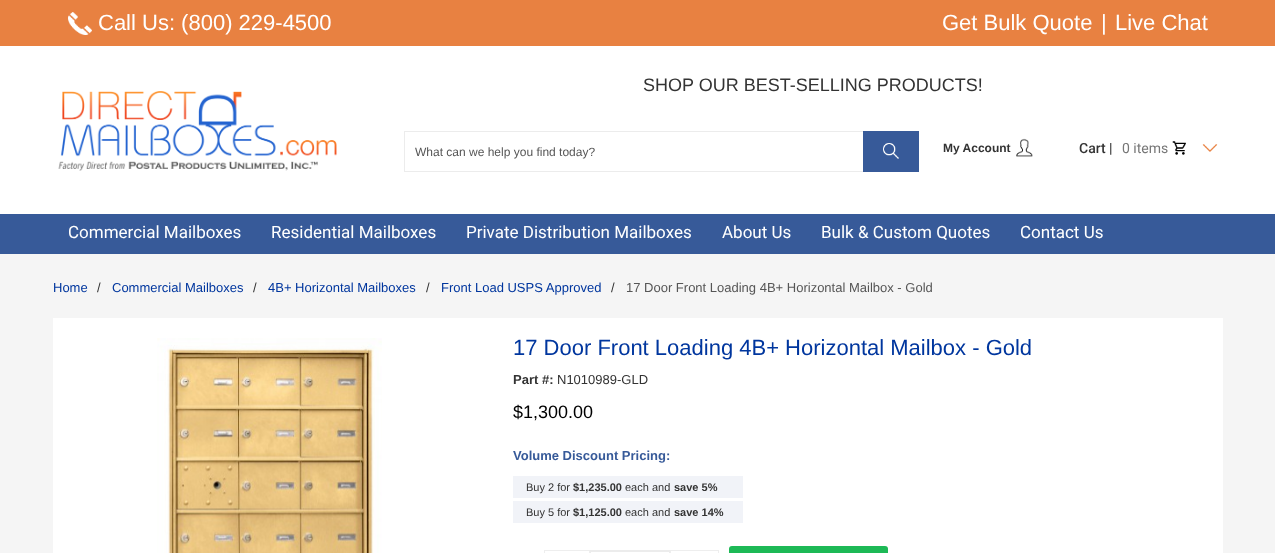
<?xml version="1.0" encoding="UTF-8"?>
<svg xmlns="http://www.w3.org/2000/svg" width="1275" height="553">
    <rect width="100%" height="100%" fill="#F5F5F5"/>
    <rect x="0" y="0" width="1275" height="46" fill="#E88141"/>
    <image x="68" y="12" width="24" height="23" href="img_01.png"/>
    <text x="98" y="30" font-family="Liberation Sans" font-size="22" fill="#FFFFFF">Call Us: (800) 229-4500</text>
    <text x="942" y="30" font-family="Liberation Sans" font-size="22" fill="#FFFFFF">Get Bulk Quote</text>
    <text x="1101" y="30" font-family="Liberation Sans" font-size="22" fill="#FFFFFF">|</text>
    <text x="1115" y="30" font-family="Liberation Sans" font-size="22" fill="#FFFFFF">Live Chat</text>
    <rect x="0" y="46" width="1275" height="168" fill="#FFFFFF"/>
    <image x="58" y="91" width="279" height="80" href="img_02.png"/>
    <text x="643" y="91" font-family="Liberation Sans" font-size="18" fill="#333333">SHOP OUR BEST-SELLING PRODUCTS!</text>
    <rect x="404.5" y="131.5" width="514" height="40" fill="none" stroke="#ECECEC"/>
    <text x="415" y="156" font-family="Liberation Sans" font-size="12" fill="#565656">What can we help you find today?</text>
    <rect x="863" y="131" width="56" height="41" fill="#375A99"/>
    <image x="883" y="143" width="16" height="16" href="img_03.png"/>
    <text x="943" y="152" font-family="Liberation Sans" font-size="12" font-weight="700" fill="#333333">My Account</text>
    <image x="1016" y="138" width="17" height="19" href="img_04.png"/>
    <text x="1079" y="153" font-family="Roboto" font-size="14" font-weight="500" fill="#333333">Cart |</text>
    <text x="1122" y="153" font-family="Roboto" font-size="14" fill="#777777">0 items</text>
    <image x="1172" y="141" width="14" height="14" href="img_05.png"/>
    <image x="1202" y="144" width="16" height="8" href="img_06.png"/>
    <rect x="0" y="214" width="1275" height="40" fill="#375A99"/>
    <text x="68" y="238" font-family="Roboto" font-size="17" fill="#FFFFFF">Commercial Mailboxes</text>
    <text x="271" y="238" font-family="Roboto" font-size="17" fill="#FFFFFF">Residential Mailboxes</text>
    <text x="466" y="238" font-family="Roboto" font-size="17" fill="#FFFFFF">Private Distribution Mailboxes</text>
    <text x="722" y="238" font-family="Roboto" font-size="17" fill="#FFFFFF">About Us</text>
    <text x="821" y="238" font-family="Roboto" font-size="17" fill="#FFFFFF">Bulk &amp; Custom Quotes</text>
    <text x="1020" y="238" font-family="Roboto" font-size="17" fill="#FFFFFF">Contact Us</text>
    <text x="53" y="292" font-family="Liberation Sans" font-size="13" fill="#00369E">Home</text>
    <text x="97" y="292" font-family="Liberation Sans" font-size="13" fill="#333333">/</text>
    <text x="112" y="292" font-family="Liberation Sans" font-size="13" fill="#00369E">Commercial Mailboxes</text>
    <text x="253" y="292" font-family="Liberation Sans" font-size="13" fill="#333333">/</text>
    <text x="268" y="292" font-family="Liberation Sans" font-size="13" fill="#00369E">4B+ Horizontal Mailboxes</text>
    <text x="426" y="292" font-family="Liberation Sans" font-size="13" fill="#333333">/</text>
    <text x="441" y="292" font-family="Liberation Sans" font-size="13" fill="#00369E">Front Load USPS Approved</text>
    <text x="611" y="292" font-family="Liberation Sans" font-size="13" fill="#333333">/</text>
    <text x="626" y="292" font-family="Liberation Sans" font-size="13" fill="#565656">17 Door Front Loading 4B+ Horizontal Mailbox - Gold</text>
    <rect x="53" y="318" width="1170" height="235" fill="#FFFFFF"/>
    <image x="157" y="338" width="225" height="215" href="img_07.png"/>
    <text x="513" y="355" font-family="Liberation Sans" font-size="22" fill="#00369E">17 Door Front Loading 4B+ Horizontal Mailbox - Gold</text>
    <text x="513" y="384" font-family="Liberation Sans" font-size="13" font-weight="700" fill="#333333">Part #:</text>
    <text x="557" y="384" font-family="Liberation Sans" font-size="13" fill="#333333">N1010989-GLD</text>
    <text x="513" y="418" font-family="Liberation Sans" font-size="18" fill="#000000">$1,300.00</text>
    <text x="513" y="460" font-family="Liberation Sans" font-size="13" font-weight="700" fill="#375A99">Volume Discount Pricing:</text>
    <rect x="513" y="476" width="230" height="22" fill="#F1F3F8"/>
    <text x="526" y="491" font-family="Liberation Sans" font-size="11" fill="#333333">Buy 2 for</text>
    <text x="573" y="491" font-family="Liberation Sans" font-size="11" font-weight="700" fill="#333333">$1,235.00</text>
    <text x="625" y="491" font-family="Liberation Sans" font-size="11" fill="#333333">each and</text>
    <text x="674" y="491" font-family="Liberation Sans" font-size="11" font-weight="700" fill="#333333">save 5%</text>
    <rect x="513" y="501" width="230" height="22" fill="#F1F3F8"/>
    <text x="526" y="516" font-family="Liberation Sans" font-size="11" fill="#333333">Buy 5 for</text>
    <text x="573" y="516" font-family="Liberation Sans" font-size="11" font-weight="700" fill="#333333">$1,125.00</text>
    <text x="625" y="516" font-family="Liberation Sans" font-size="11" fill="#333333">each and</text>
    <text x="674" y="516" font-family="Liberation Sans" font-size="11" font-weight="700" fill="#333333">save 14%</text>
    <rect x="544.5" y="550.5" width="45" height="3" fill="none" stroke="#EEEEEE"/>
    <rect x="591" y="551" width="78" height="1" fill="#ECECEC"/>
    <rect x="590.5" y="550.5" width="79" height="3" fill="none" stroke="#ECECEC"/>
    <rect x="670.5" y="550.5" width="48" height="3" fill="none" stroke="#EEEEEE"/>
    <rect x="729" y="546" width="159" height="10" rx="3" fill="#1DB956"/>
</svg>
